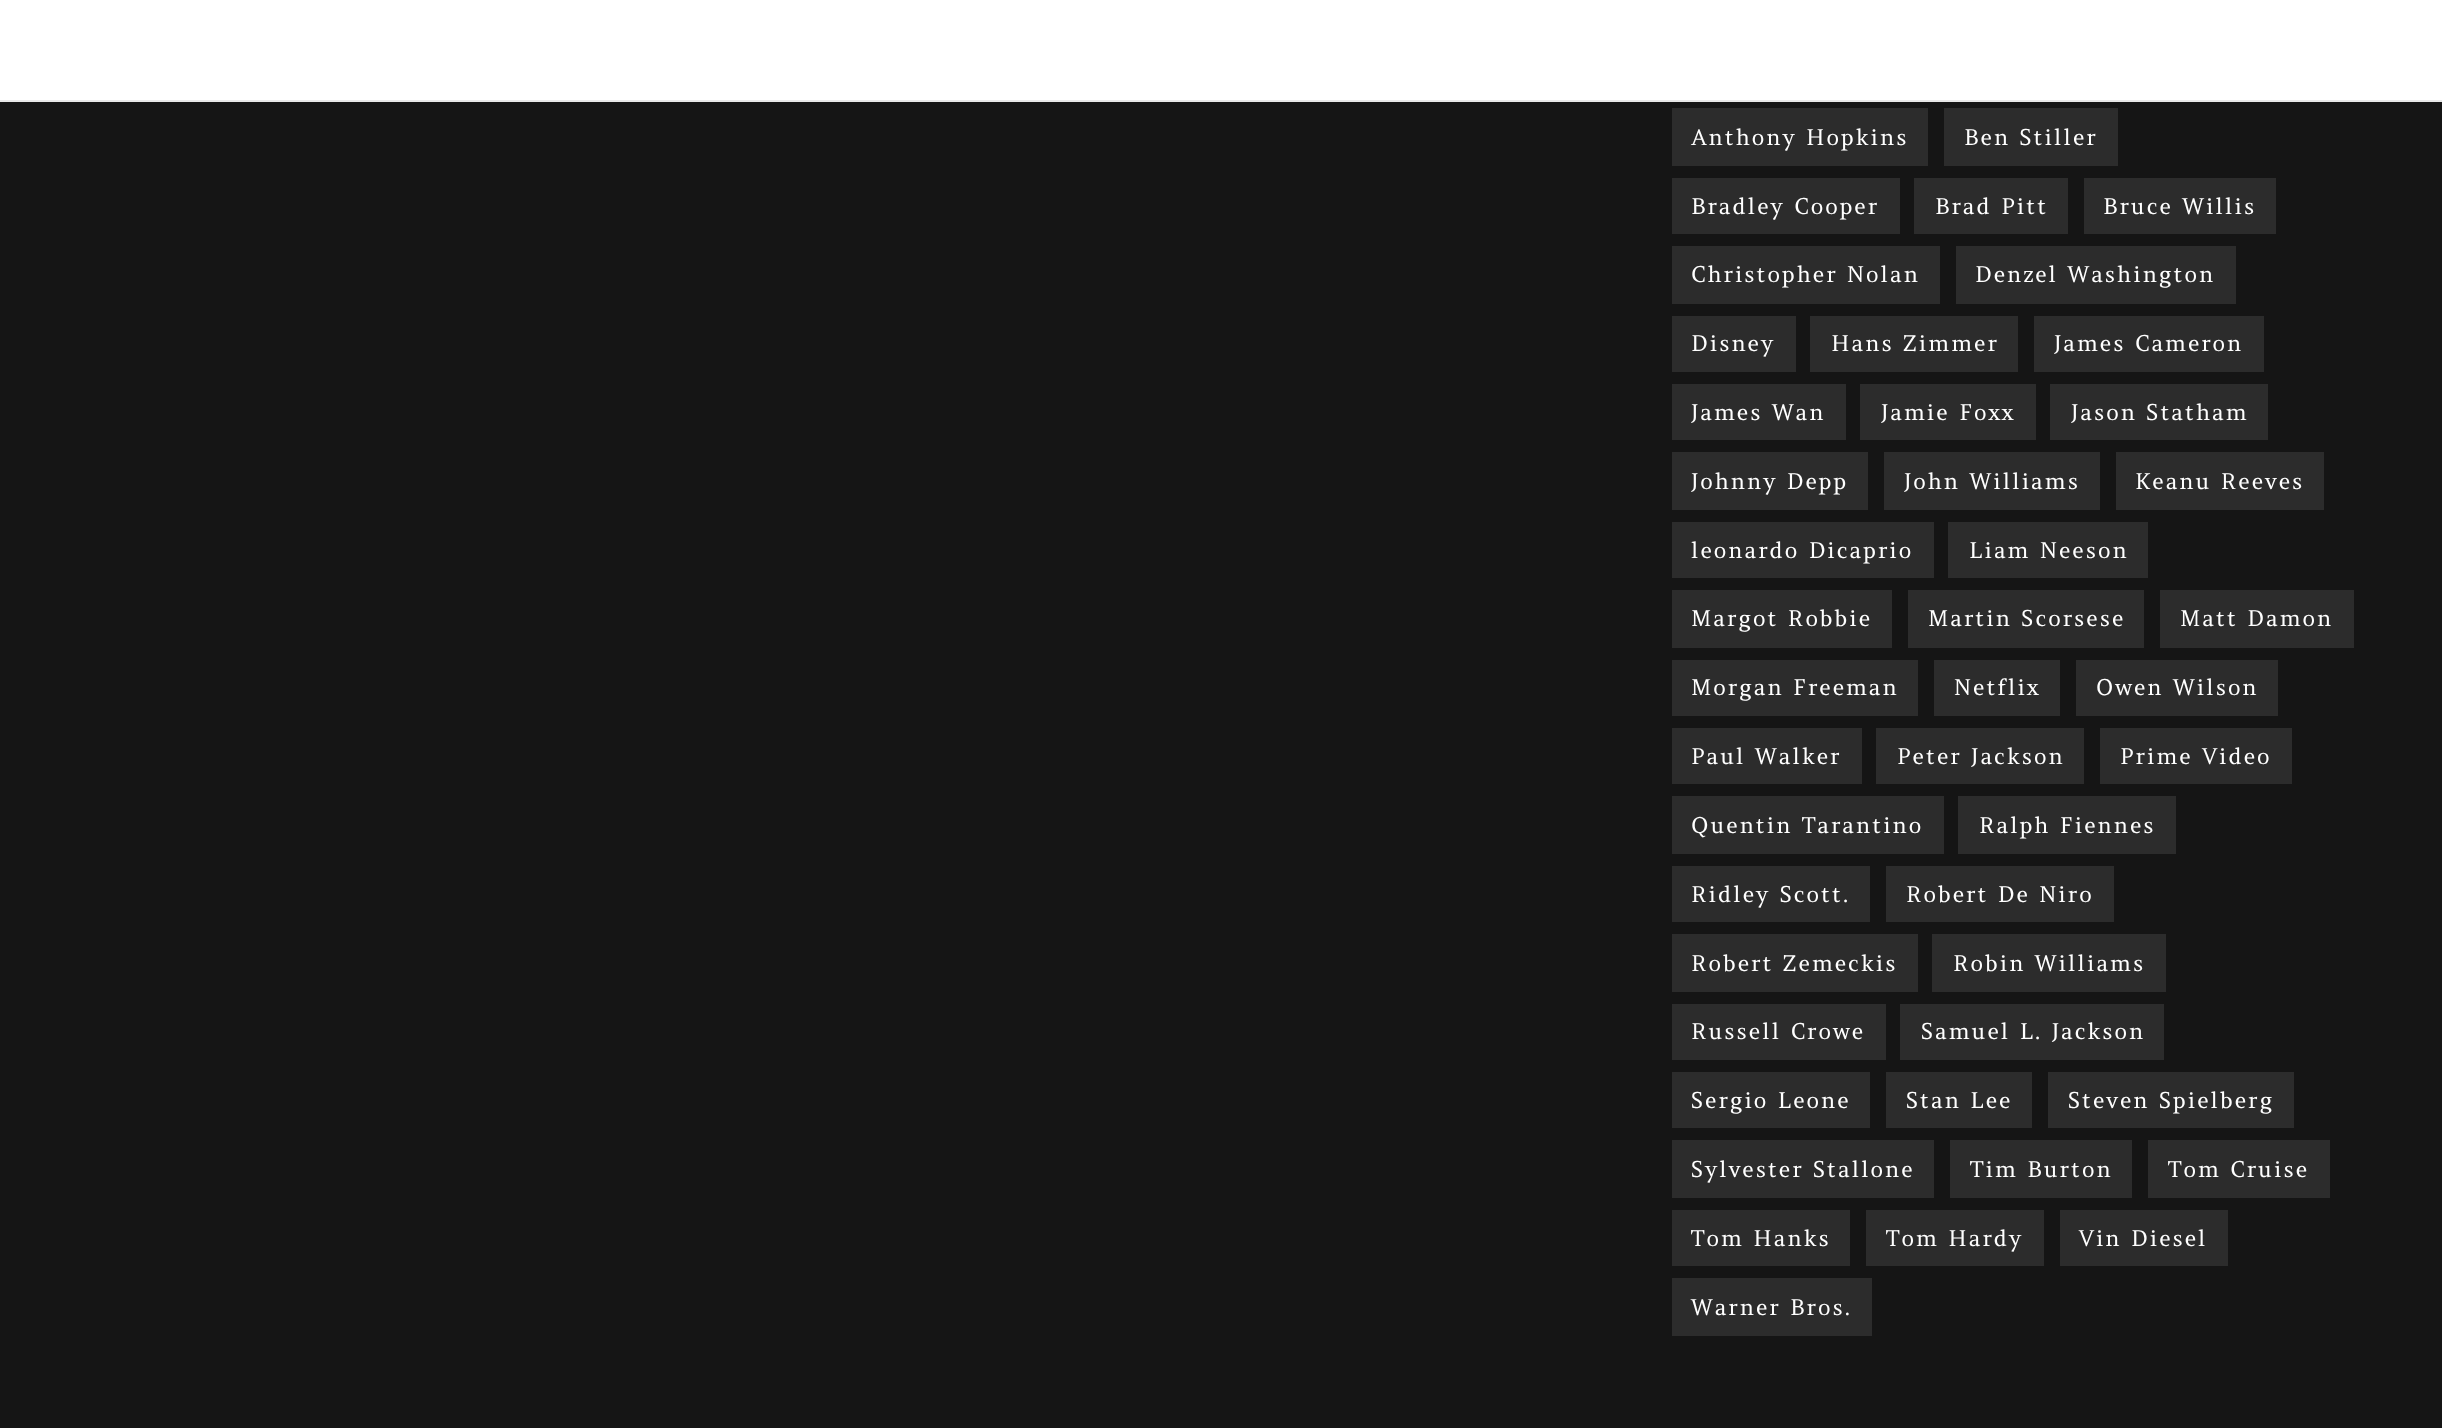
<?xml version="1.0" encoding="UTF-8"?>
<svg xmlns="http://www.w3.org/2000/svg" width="2442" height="1428">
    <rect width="100%" height="100%" fill="#151515"/>
    <rect x="0" y="0" width="2442" height="100" fill="#FFFFFF"/>
    <rect x="0" y="100" width="2442" height="2" fill="#E8E8E8"/>
    <rect x="1672" y="108" width="256" height="58" fill="#2C2C2C"/>
    <text x="1691" y="145" font-family="Amethysta" font-size="22" letter-spacing="2" fill="#FFFFFF">Anthony Hopkins</text>
    <rect x="1944" y="108" width="174" height="58" fill="#2C2C2C"/>
    <text x="1964" y="145" font-family="Amethysta" font-size="22" letter-spacing="2" fill="#FFFFFF">Ben Stiller</text>
    <rect x="1672" y="178" width="228" height="56" fill="#2C2C2C"/>
    <text x="1691" y="214" font-family="Amethysta" font-size="22" letter-spacing="2" fill="#FFFFFF">Bradley Cooper</text>
    <rect x="1914" y="178" width="154" height="56" fill="#2C2C2C"/>
    <text x="1935" y="214" font-family="Amethysta" font-size="22" letter-spacing="2" fill="#FFFFFF">Brad Pitt</text>
    <rect x="2084" y="178" width="192" height="56" fill="#2C2C2C"/>
    <text x="2103" y="214" font-family="Amethysta" font-size="22" letter-spacing="2" fill="#FFFFFF">Bruce Willis</text>
    <rect x="1672" y="246" width="268" height="58" fill="#2C2C2C"/>
    <text x="1691" y="282" font-family="Amethysta" font-size="22" letter-spacing="2" fill="#FFFFFF">Christopher Nolan</text>
    <rect x="1956" y="246" width="280" height="58" fill="#2C2C2C"/>
    <text x="1975" y="282" font-family="Amethysta" font-size="22" letter-spacing="2" fill="#FFFFFF">Denzel Washington</text>
    <rect x="1672" y="316" width="124" height="56" fill="#2C2C2C"/>
    <text x="1691" y="351" font-family="Amethysta" font-size="22" letter-spacing="2" fill="#FFFFFF">Disney</text>
    <rect x="1810" y="316" width="208" height="56" fill="#2C2C2C"/>
    <text x="1831" y="351" font-family="Amethysta" font-size="22" letter-spacing="2" fill="#FFFFFF">Hans Zimmer</text>
    <rect x="2034" y="316" width="230" height="56" fill="#2C2C2C"/>
    <text x="2054" y="351" font-family="Amethysta" font-size="22" letter-spacing="2" fill="#FFFFFF">James Cameron</text>
    <rect x="1672" y="384" width="174" height="56" fill="#2C2C2C"/>
    <text x="1691" y="420" font-family="Amethysta" font-size="22" letter-spacing="2" fill="#FFFFFF">James Wan</text>
    <rect x="1860" y="384" width="176" height="56" fill="#2C2C2C"/>
    <text x="1881" y="420" font-family="Amethysta" font-size="22" letter-spacing="2" fill="#FFFFFF">Jamie Foxx</text>
    <rect x="2050" y="384" width="218" height="56" fill="#2C2C2C"/>
    <text x="2071" y="420" font-family="Amethysta" font-size="22" letter-spacing="2" fill="#FFFFFF">Jason Statham</text>
    <rect x="1672" y="452" width="196" height="58" fill="#2C2C2C"/>
    <text x="1691" y="489" font-family="Amethysta" font-size="22" letter-spacing="2" fill="#FFFFFF">Johnny Depp</text>
    <rect x="1884" y="452" width="216" height="58" fill="#2C2C2C"/>
    <text x="1904" y="489" font-family="Amethysta" font-size="22" letter-spacing="2" fill="#FFFFFF">John Williams</text>
    <rect x="2116" y="452" width="208" height="58" fill="#2C2C2C"/>
    <text x="2135" y="489" font-family="Amethysta" font-size="22" letter-spacing="2" fill="#FFFFFF">Keanu Reeves</text>
    <rect x="1672" y="522" width="262" height="56" fill="#2C2C2C"/>
    <text x="1691" y="558" font-family="Amethysta" font-size="22" letter-spacing="2" fill="#FFFFFF">leonardo Dicaprio</text>
    <rect x="1948" y="522" width="200" height="56" fill="#2C2C2C"/>
    <text x="1969" y="558" font-family="Amethysta" font-size="22" letter-spacing="2" fill="#FFFFFF">Liam Neeson</text>
    <rect x="1672" y="590" width="220" height="58" fill="#2C2C2C"/>
    <text x="1691" y="626" font-family="Amethysta" font-size="22" letter-spacing="2" fill="#FFFFFF">Margot Robbie</text>
    <rect x="1908" y="590" width="236" height="58" fill="#2C2C2C"/>
    <text x="1928" y="626" font-family="Amethysta" font-size="22" letter-spacing="2" fill="#FFFFFF">Martin Scorsese</text>
    <rect x="2160" y="590" width="194" height="58" fill="#2C2C2C"/>
    <text x="2180" y="626" font-family="Amethysta" font-size="22" letter-spacing="2" fill="#FFFFFF">Matt Damon</text>
    <rect x="1672" y="660" width="246" height="56" fill="#2C2C2C"/>
    <text x="1691" y="695" font-family="Amethysta" font-size="22" letter-spacing="2" fill="#FFFFFF">Morgan Freeman</text>
    <rect x="1934" y="660" width="126" height="56" fill="#2C2C2C"/>
    <text x="1954" y="695" font-family="Amethysta" font-size="22" letter-spacing="2" fill="#FFFFFF">Netflix</text>
    <rect x="2076" y="660" width="202" height="56" fill="#2C2C2C"/>
    <text x="2096" y="695" font-family="Amethysta" font-size="22" letter-spacing="2" fill="#FFFFFF">Owen Wilson</text>
    <rect x="1672" y="728" width="190" height="56" fill="#2C2C2C"/>
    <text x="1691" y="764" font-family="Amethysta" font-size="22" letter-spacing="2" fill="#FFFFFF">Paul Walker</text>
    <rect x="1876" y="728" width="208" height="56" fill="#2C2C2C"/>
    <text x="1897" y="764" font-family="Amethysta" font-size="22" letter-spacing="2" fill="#FFFFFF">Peter Jackson</text>
    <rect x="2100" y="728" width="192" height="56" fill="#2C2C2C"/>
    <text x="2120" y="764" font-family="Amethysta" font-size="22" letter-spacing="2" fill="#FFFFFF">Prime Video</text>
    <rect x="1672" y="796" width="272" height="58" fill="#2C2C2C"/>
    <text x="1691" y="833" font-family="Amethysta" font-size="22" letter-spacing="2" fill="#FFFFFF">Quentin Tarantino</text>
    <rect x="1958" y="796" width="218" height="58" fill="#2C2C2C"/>
    <text x="1979" y="833" font-family="Amethysta" font-size="22" letter-spacing="2" fill="#FFFFFF">Ralph Fiennes</text>
    <rect x="1672" y="866" width="198" height="56" fill="#2C2C2C"/>
    <text x="1691" y="902" font-family="Amethysta" font-size="22" letter-spacing="2" fill="#FFFFFF">Ridley Scott.</text>
    <rect x="1886" y="866" width="228" height="56" fill="#2C2C2C"/>
    <text x="1906" y="902" font-family="Amethysta" font-size="22" letter-spacing="2" fill="#FFFFFF">Robert De Niro</text>
    <rect x="1672" y="934" width="246" height="58" fill="#2C2C2C"/>
    <text x="1691" y="971" font-family="Amethysta" font-size="22" letter-spacing="2" fill="#FFFFFF">Robert Zemeckis</text>
    <rect x="1932" y="934" width="234" height="58" fill="#2C2C2C"/>
    <text x="1953" y="971" font-family="Amethysta" font-size="22" letter-spacing="2" fill="#FFFFFF">Robin Williams</text>
    <rect x="1672" y="1004" width="214" height="56" fill="#2C2C2C"/>
    <text x="1691" y="1039" font-family="Amethysta" font-size="22" letter-spacing="2" fill="#FFFFFF">Russell Crowe</text>
    <rect x="1900" y="1004" width="264" height="56" fill="#2C2C2C"/>
    <text x="1921" y="1039" font-family="Amethysta" font-size="22" letter-spacing="2" fill="#FFFFFF">Samuel L. Jackson</text>
    <rect x="1672" y="1072" width="198" height="56" fill="#2C2C2C"/>
    <text x="1691" y="1108" font-family="Amethysta" font-size="22" letter-spacing="2" fill="#FFFFFF">Sergio Leone</text>
    <rect x="1886" y="1072" width="146" height="56" fill="#2C2C2C"/>
    <text x="1906" y="1108" font-family="Amethysta" font-size="22" letter-spacing="2" fill="#FFFFFF">Stan Lee</text>
    <rect x="2048" y="1072" width="246" height="56" fill="#2C2C2C"/>
    <text x="2068" y="1108" font-family="Amethysta" font-size="22" letter-spacing="2" fill="#FFFFFF">Steven Spielberg</text>
    <rect x="1672" y="1140" width="262" height="58" fill="#2C2C2C"/>
    <text x="1691" y="1177" font-family="Amethysta" font-size="22" letter-spacing="2" fill="#FFFFFF">Sylvester Stallone</text>
    <rect x="1950" y="1140" width="182" height="58" fill="#2C2C2C"/>
    <text x="1970" y="1177" font-family="Amethysta" font-size="22" letter-spacing="2" fill="#FFFFFF">Tim Burton</text>
    <rect x="2148" y="1140" width="182" height="58" fill="#2C2C2C"/>
    <text x="2168" y="1177" font-family="Amethysta" font-size="22" letter-spacing="2" fill="#FFFFFF">Tom Cruise</text>
    <rect x="1672" y="1210" width="178" height="56" fill="#2C2C2C"/>
    <text x="1691" y="1246" font-family="Amethysta" font-size="22" letter-spacing="2" fill="#FFFFFF">Tom Hanks</text>
    <rect x="1866" y="1210" width="178" height="56" fill="#2C2C2C"/>
    <text x="1886" y="1246" font-family="Amethysta" font-size="22" letter-spacing="2" fill="#FFFFFF">Tom Hardy</text>
    <rect x="2060" y="1210" width="168" height="56" fill="#2C2C2C"/>
    <text x="2079" y="1246" font-family="Amethysta" font-size="22" letter-spacing="2" fill="#FFFFFF">Vin Diesel</text>
    <rect x="1672" y="1278" width="200" height="58" fill="#2C2C2C"/>
    <text x="1691" y="1315" font-family="Amethysta" font-size="22" letter-spacing="2" fill="#FFFFFF">Warner Bros.</text>
</svg>
